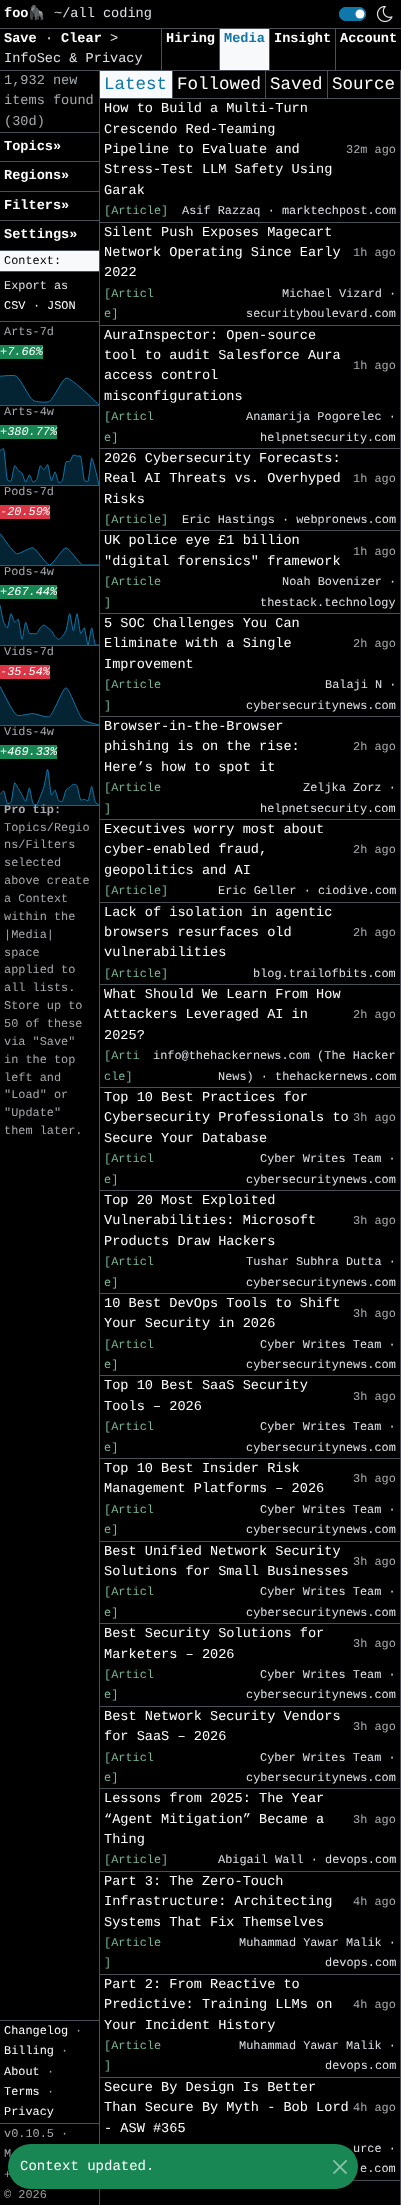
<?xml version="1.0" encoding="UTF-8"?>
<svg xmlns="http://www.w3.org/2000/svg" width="401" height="2205">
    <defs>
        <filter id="blur1" x="-50%" y="-200%" width="200%" height="500%"><feGaussianBlur stdDeviation="8"/></filter>
    </defs>
    <rect width="100%" height="100%" fill="#000000"/>
    <rect x="0" y="28" width="401" height="1" fill="#495057"/>
    <text x="4" y="17" font-family="Liberation Mono" font-size="13.6" font-weight="700" fill="#FFFFFF">foo</text>
    <text x="28" y="17" font-family="Noto Color Emoji" font-size="13.6" font-weight="700" fill="#FFFFFF">🦍</text>
    <text x="54" y="17" font-family="Liberation Mono" font-size="13.6" fill="#DEE2E6">~/all coding</text>
    <rect x="339" y="7" width="27" height="14" rx="7" fill="#1077AA"/>
    <circle cx="360" cy="14" r="4.5" fill="#FFFFFF"/>
    <rect x="339.5" y="7.5" width="26" height="13" rx="6.5" fill="none" stroke="#1077AA"/>
    <image x="376" y="5" width="17" height="18" href="img_01.png"/>
    <rect x="0" y="70" width="401" height="1" fill="#495057"/>
    <text x="4" y="42" font-family="Liberation Mono" font-size="13.6" font-weight="700" fill="#FFFFFF">Save</text>
    <text x="45" y="42" font-family="Liberation Mono" font-size="13.6" fill="#DEE2E6">·</text>
    <text x="61" y="42" font-family="Liberation Mono" font-size="13.6" font-weight="700" fill="#FFFFFF">Clear</text>
    <text x="110" y="42" font-family="Liberation Mono" font-size="13.6" fill="#DEE2E6">&gt;</text>
    <text x="4" y="62" font-family="Liberation Mono" font-size="13.6" fill="#DEE2E6">InfoSec &amp; Privacy</text>
    <rect x="161" y="29" width="1" height="41" fill="#495057"/>
    <text x="166" y="42" font-family="Liberation Mono" font-size="13.6" font-weight="700" fill="#FFFFFF">Hiring</text>
    <rect x="220" y="29" width="49" height="41" fill="#F8F9FA"/>
    <rect x="219" y="29" width="1" height="41" fill="#495057"/>
    <text x="224" y="42" font-family="Liberation Mono" font-size="13.6" font-weight="700" fill="#1077AA">Media</text>
    <rect x="269" y="29" width="1" height="41" fill="#495057"/>
    <text x="274" y="42" font-family="Liberation Mono" font-size="13.6" font-weight="700" fill="#FFFFFF">Insight</text>
    <rect x="335" y="29" width="1" height="41" fill="#495057"/>
    <text x="340" y="42" font-family="Liberation Mono" font-size="13.6" font-weight="700" fill="#FFFFFF">Account</text>
    <rect x="99" y="71" width="1" height="2134" fill="#495057"/>
    <rect x="0" y="132" width="99" height="1" fill="#495057"/>
    <text font-family="Liberation Mono" font-size="13.6" fill="#A7AAAD">
        <tspan x="4" y="84">1,932 new</tspan>
        <tspan x="4" y="104">items found</tspan>
        <tspan x="4" y="125">(30d)</tspan>
    </text>
    <rect x="0" y="161" width="99" height="1" fill="#495057"/>
    <text x="4" y="150" font-family="Liberation Mono" font-size="13.6" font-weight="700" fill="#FFFFFF">Topics»</text>
    <rect x="0" y="191" width="99" height="1" fill="#495057"/>
    <text x="4" y="179" font-family="Liberation Mono" font-size="13.6" font-weight="700" fill="#FFFFFF">Regions»</text>
    <rect x="0" y="220" width="99" height="1" fill="#495057"/>
    <text x="4" y="209" font-family="Liberation Mono" font-size="13.6" font-weight="700" fill="#FFFFFF">Filters»</text>
    <rect x="0" y="250" width="99" height="1" fill="#495057"/>
    <text x="4" y="238" font-family="Liberation Mono" font-size="13.6" font-weight="700" fill="#FFFFFF">Settings»</text>
    <rect x="0" y="251" width="99" height="20" fill="#F8F9FA"/>
    <rect x="0" y="271" width="99" height="1" fill="#495057"/>
    <text x="4" y="264" font-family="Liberation Mono" font-size="11.9" fill="#000000">Context:</text>
    <rect x="0" y="321" width="99" height="1" fill="#495057"/>
    <text x="4" y="289" font-family="Liberation Mono" font-size="11.9" fill="#DEE2E6">Export as</text>
    <text x="4" y="309" font-family="Liberation Mono" font-size="11.9" fill="#FFFFFF">CSV</text>
    <text x="33" y="309" font-family="Liberation Mono" font-size="11.9" fill="#DEE2E6">·</text>
    <text x="47" y="309" font-family="Liberation Mono" font-size="11.9" fill="#FFFFFF">JSON</text>
    <text x="4" y="335" font-family="Liberation Mono" font-size="11.9" fill="#A7AAAD">Arts-7d</text>
    <rect x="0" y="345" width="43" height="14" fill="#198754"/>
    <text x="0" y="355" font-family="Liberation Mono" font-size="11.9" font-style="italic" fill="#FFFFFF">+7.66%</text>
    <rect x="0" y="405" width="99" height="1" fill="#495057"/>
    <image x="0" y="374" width="99" height="31" href="img_02.png"/>
    <text x="4" y="415" font-family="Liberation Mono" font-size="11.9" fill="#A7AAAD">Arts-4w</text>
    <rect x="0" y="425" width="57" height="14" fill="#198754"/>
    <text x="0" y="435" font-family="Liberation Mono" font-size="11.9" font-style="italic" fill="#FFFFFF">+380.77%</text>
    <rect x="0" y="485" width="99" height="1" fill="#495057"/>
    <image x="0" y="448" width="99" height="37" href="img_03.png"/>
    <text x="4" y="495" font-family="Liberation Mono" font-size="11.9" fill="#A7AAAD">Pods-7d</text>
    <rect x="0" y="505" width="50" height="14" fill="#DC3545"/>
    <text x="0" y="515" font-family="Liberation Mono" font-size="11.9" font-style="italic" fill="#FFFFFF">-20.59%</text>
    <rect x="0" y="565" width="99" height="1" fill="#495057"/>
    <image x="0" y="533" width="99" height="32" href="img_04.png"/>
    <text x="4" y="575" font-family="Liberation Mono" font-size="11.9" fill="#A7AAAD">Pods-4w</text>
    <rect x="0" y="585" width="57" height="14" fill="#198754"/>
    <text x="0" y="595" font-family="Liberation Mono" font-size="11.9" font-style="italic" fill="#FFFFFF">+267.44%</text>
    <rect x="0" y="645" width="99" height="1" fill="#495057"/>
    <image x="0" y="605" width="99" height="40" href="img_05.png"/>
    <text x="4" y="655" font-family="Liberation Mono" font-size="11.9" fill="#A7AAAD">Vids-7d</text>
    <rect x="0" y="665" width="50" height="14" fill="#DC3545"/>
    <text x="0" y="675" font-family="Liberation Mono" font-size="11.9" font-style="italic" fill="#FFFFFF">-35.54%</text>
    <rect x="0" y="725" width="99" height="1" fill="#495057"/>
    <image x="0" y="686" width="99" height="39" href="img_06.png"/>
    <text x="4" y="735" font-family="Liberation Mono" font-size="11.9" fill="#A7AAAD">Vids-4w</text>
    <rect x="0" y="745" width="57" height="14" fill="#198754"/>
    <text x="0" y="755" font-family="Liberation Mono" font-size="11.9" font-style="italic" fill="#FFFFFF">+469.33%</text>
    <rect x="0" y="805" width="99" height="1" fill="#495057"/>
    <image x="0" y="769" width="99" height="36" href="img_07.png"/>
    <text x="4" y="813" font-family="Liberation Mono" font-size="11.9" font-weight="700" fill="#A7AAAD">Pro tip:</text>
    <text font-family="Liberation Mono" font-size="11.9" fill="#A7AAAD">
        <tspan x="4" y="831">Topics/Regio</tspan>
        <tspan x="4" y="848">ns/Filters</tspan>
        <tspan x="4" y="866">selected</tspan>
        <tspan x="4" y="884">above create</tspan>
        <tspan x="4" y="902">a Context</tspan>
        <tspan x="4" y="920">within the</tspan>
        <tspan x="4" y="938">|Media|</tspan>
        <tspan x="4" y="956">space</tspan>
        <tspan x="4" y="973">applied to</tspan>
        <tspan x="4" y="991">all lists.</tspan>
        <tspan x="4" y="1009">Store up to</tspan>
        <tspan x="4" y="1027">50 of these</tspan>
        <tspan x="4" y="1045">via "Save"</tspan>
        <tspan x="4" y="1063">in the top</tspan>
        <tspan x="4" y="1081">left and</tspan>
        <tspan x="4" y="1098">"Load" or</tspan>
        <tspan x="4" y="1116">"Update"</tspan>
        <tspan x="4" y="1134">them later.</tspan>
    </text>
    <rect x="0" y="2020" width="99" height="1" fill="#495057"/>
    <text x="4" y="2034" font-family="Liberation Mono" font-size="11.9" fill="#FFFFFF">Changelog</text>
    <text x="75" y="2034" font-family="Liberation Mono" font-size="11.9" fill="#A7AAAD">·</text>
    <text x="4" y="2054" font-family="Liberation Mono" font-size="11.9" fill="#FFFFFF">Billing</text>
    <text x="61" y="2054" font-family="Liberation Mono" font-size="11.9" fill="#A7AAAD">·</text>
    <text x="4" y="2075" font-family="Liberation Mono" font-size="11.9" fill="#FFFFFF">About</text>
    <text x="47" y="2075" font-family="Liberation Mono" font-size="11.9" fill="#A7AAAD">·</text>
    <text x="4" y="2095" font-family="Liberation Mono" font-size="11.9" fill="#FFFFFF">Terms</text>
    <text x="47" y="2095" font-family="Liberation Mono" font-size="11.9" fill="#A7AAAD">·</text>
    <text x="4" y="2115" font-family="Liberation Mono" font-size="11.9" fill="#FFFFFF">Privacy</text>
    <rect x="0" y="2123" width="99" height="1" fill="#495057"/>
    <text font-family="Liberation Mono" font-size="11.9" fill="#A7AAAD">
        <tspan x="4" y="2137">v0.10.5 ·</tspan>
        <tspan x="4" y="2157">M</tspan>
        <tspan x="4" y="2178">+</tspan>
        <tspan x="4" y="2198">© 2026</tspan>
    </text>
    <rect x="400" y="71" width="1" height="2134" fill="#495057"/>
    <rect x="100" y="98" width="300" height="1" fill="#495057"/>
    <rect x="100" y="71" width="72" height="27" fill="#F8F9FA"/>
    <rect x="172" y="71" width="1" height="27" fill="#495057"/>
    <text x="104" y="89" font-family="Liberation Mono" font-size="17.5" fill="#1077AA">Latest</text>
    <rect x="265" y="71" width="1" height="27" fill="#495057"/>
    <text x="177" y="89" font-family="Liberation Mono" font-size="17.5" fill="#FFFFFF">Followed</text>
    <rect x="327" y="71" width="1" height="27" fill="#495057"/>
    <text x="270" y="89" font-family="Liberation Mono" font-size="17.5" fill="#FFFFFF">Saved</text>
    <text x="332" y="89" font-family="Liberation Mono" font-size="17.5" fill="#FFFFFF">Source</text>
    <rect x="100" y="222" width="300" height="1" fill="#495057"/>
    <text font-family="Liberation Mono" font-size="13.6" fill="#FFFFFF">
        <tspan x="104" y="112">How to Build a Multi-Turn</tspan>
        <tspan x="104" y="133">Crescendo Red-Teaming</tspan>
        <tspan x="104" y="153">Pipeline to Evaluate and</tspan>
        <tspan x="104" y="173">Stress-Test LLM Safety Using</tspan>
        <tspan x="104" y="194">Garak</tspan>
    </text>
    <text x="346" y="153" font-family="Liberation Mono" font-size="11.9" fill="#A7AAAD">32m ago</text>
    <text x="104" y="214" font-family="Liberation Mono" font-size="11.9" fill="#75B798">[Article]</text>
    <text x="182" y="214" font-family="Liberation Mono" font-size="11.9" fill="#DEE2E6">Asif Razzaq · marktechpost.com</text>
    <rect x="100" y="325" width="300" height="1" fill="#495057"/>
    <text font-family="Liberation Mono" font-size="13.6" fill="#FFFFFF">
        <tspan x="104" y="236">Silent Push Exposes Magecart</tspan>
        <tspan x="104" y="256">Network Operating Since Early</tspan>
        <tspan x="104" y="276">2022</tspan>
    </text>
    <text x="353" y="256" font-family="Liberation Mono" font-size="11.9" fill="#A7AAAD">1h ago</text>
    <text font-family="Liberation Mono" font-size="11.9" fill="#75B798">
        <tspan x="104" y="297">[Articl</tspan>
        <tspan x="104" y="317">e]</tspan>
    </text>
    <text x="282" y="297" font-family="Liberation Mono" font-size="11.9" fill="#DEE2E6">Michael Vizard ·</text>
    <text x="246" y="317" font-family="Liberation Mono" font-size="11.9" fill="#DEE2E6">securityboulevard.com</text>
    <rect x="100" y="448" width="300" height="1" fill="#495057"/>
    <text font-family="Liberation Mono" font-size="13.6" fill="#FFFFFF">
        <tspan x="104" y="339">AuraInspector: Open-source</tspan>
        <tspan x="104" y="359">tool to audit Salesforce Aura</tspan>
        <tspan x="104" y="379">access control</tspan>
        <tspan x="104" y="400">misconfigurations</tspan>
    </text>
    <text x="353" y="369" font-family="Liberation Mono" font-size="11.9" fill="#A7AAAD">1h ago</text>
    <text font-family="Liberation Mono" font-size="11.9" fill="#75B798">
        <tspan x="104" y="420">[Articl</tspan>
        <tspan x="104" y="441">e]</tspan>
    </text>
    <text x="246" y="420" font-family="Liberation Mono" font-size="11.9" fill="#DEE2E6">Anamarija Pogorelec ·</text>
    <text x="260" y="441" font-family="Liberation Mono" font-size="11.9" fill="#DEE2E6">helpnetsecurity.com</text>
    <rect x="100" y="530" width="300" height="1" fill="#495057"/>
    <text font-family="Liberation Mono" font-size="13.6" fill="#FFFFFF">
        <tspan x="104" y="462">2026 Cybersecurity Forecasts:</tspan>
        <tspan x="104" y="482">Real AI Threats vs. Overhyped</tspan>
        <tspan x="104" y="503">Risks</tspan>
    </text>
    <text x="353" y="482" font-family="Liberation Mono" font-size="11.9" fill="#A7AAAD">1h ago</text>
    <text x="104" y="523" font-family="Liberation Mono" font-size="11.9" fill="#75B798">[Article]</text>
    <text x="182" y="523" font-family="Liberation Mono" font-size="11.9" fill="#DEE2E6">Eric Hastings · webpronews.com</text>
    <rect x="100" y="613" width="300" height="1" fill="#495057"/>
    <text font-family="Liberation Mono" font-size="13.6" fill="#FFFFFF">
        <tspan x="104" y="544">UK police eye £1 billion</tspan>
        <tspan x="104" y="565">"digital forensics" framework</tspan>
    </text>
    <text x="353" y="555" font-family="Liberation Mono" font-size="11.9" fill="#A7AAAD">1h ago</text>
    <text font-family="Liberation Mono" font-size="11.9" fill="#75B798">
        <tspan x="104" y="585">[Article</tspan>
        <tspan x="104" y="606">]</tspan>
    </text>
    <text x="282" y="585" font-family="Liberation Mono" font-size="11.9" fill="#DEE2E6">Noah Bovenizer ·</text>
    <text x="260" y="606" font-family="Liberation Mono" font-size="11.9" fill="#DEE2E6">thestack.technology</text>
    <rect x="100" y="716" width="300" height="1" fill="#495057"/>
    <text font-family="Liberation Mono" font-size="13.6" fill="#FFFFFF">
        <tspan x="104" y="627">5 SOC Challenges You Can</tspan>
        <tspan x="104" y="647">Eliminate with a Single</tspan>
        <tspan x="104" y="668">Improvement</tspan>
    </text>
    <text x="353" y="647" font-family="Liberation Mono" font-size="11.9" fill="#A7AAAD">2h ago</text>
    <text font-family="Liberation Mono" font-size="11.9" fill="#75B798">
        <tspan x="104" y="688">[Article</tspan>
        <tspan x="104" y="709">]</tspan>
    </text>
    <text x="325" y="688" font-family="Liberation Mono" font-size="11.9" fill="#DEE2E6">Balaji N ·</text>
    <text x="246" y="709" font-family="Liberation Mono" font-size="11.9" fill="#DEE2E6">cybersecuritynews.com</text>
    <rect x="100" y="819" width="300" height="1" fill="#495057"/>
    <text font-family="Liberation Mono" font-size="13.6" fill="#FFFFFF">
        <tspan x="104" y="730">Browser-in-the-Browser</tspan>
        <tspan x="104" y="750">phishing is on the rise:</tspan>
        <tspan x="104" y="771">Here’s how to spot it</tspan>
    </text>
    <text x="353" y="750" font-family="Liberation Mono" font-size="11.9" fill="#A7AAAD">2h ago</text>
    <text font-family="Liberation Mono" font-size="11.9" fill="#75B798">
        <tspan x="104" y="791">[Article</tspan>
        <tspan x="104" y="812">]</tspan>
    </text>
    <text x="303" y="791" font-family="Liberation Mono" font-size="11.9" fill="#DEE2E6">Zeljka Zorz ·</text>
    <text x="260" y="812" font-family="Liberation Mono" font-size="11.9" fill="#DEE2E6">helpnetsecurity.com</text>
    <rect x="100" y="902" width="300" height="1" fill="#495057"/>
    <text font-family="Liberation Mono" font-size="13.6" fill="#FFFFFF">
        <tspan x="104" y="833">Executives worry most about</tspan>
        <tspan x="104" y="853">cyber-enabled fraud,</tspan>
        <tspan x="104" y="874">geopolitics and AI</tspan>
    </text>
    <text x="353" y="853" font-family="Liberation Mono" font-size="11.9" fill="#A7AAAD">2h ago</text>
    <text x="104" y="894" font-family="Liberation Mono" font-size="11.9" fill="#75B798">[Article]</text>
    <text x="218" y="894" font-family="Liberation Mono" font-size="11.9" fill="#DEE2E6">Eric Geller · ciodive.com</text>
    <rect x="100" y="984" width="300" height="1" fill="#495057"/>
    <text font-family="Liberation Mono" font-size="13.6" fill="#FFFFFF">
        <tspan x="104" y="916">Lack of isolation in agentic</tspan>
        <tspan x="104" y="936">browsers resurfaces old</tspan>
        <tspan x="104" y="956">vulnerabilities</tspan>
    </text>
    <text x="353" y="936" font-family="Liberation Mono" font-size="11.9" fill="#A7AAAD">2h ago</text>
    <text x="104" y="977" font-family="Liberation Mono" font-size="11.9" fill="#75B798">[Article]</text>
    <text x="253" y="977" font-family="Liberation Mono" font-size="11.9" fill="#DEE2E6">blog.trailofbits.com</text>
    <rect x="100" y="1087" width="300" height="1" fill="#495057"/>
    <text font-family="Liberation Mono" font-size="13.6" fill="#FFFFFF">
        <tspan x="104" y="998">What Should We Learn From How</tspan>
        <tspan x="104" y="1018">Attackers Leveraged AI in</tspan>
        <tspan x="104" y="1039">2025?</tspan>
    </text>
    <text x="353" y="1018" font-family="Liberation Mono" font-size="11.9" fill="#A7AAAD">2h ago</text>
    <text font-family="Liberation Mono" font-size="11.9" fill="#75B798">
        <tspan x="104" y="1059">[Arti</tspan>
        <tspan x="104" y="1080">cle]</tspan>
    </text>
    <text x="153" y="1059" font-family="Liberation Mono" font-size="11.9" fill="#DEE2E6">info@thehackernews.com (The Hacker</text>
    <text x="218" y="1080" font-family="Liberation Mono" font-size="11.9" fill="#DEE2E6">News) · thehackernews.com</text>
    <rect x="100" y="1190" width="300" height="1" fill="#495057"/>
    <text font-family="Liberation Mono" font-size="13.6" fill="#FFFFFF">
        <tspan x="104" y="1101">Top 10 Best Practices for</tspan>
        <tspan x="104" y="1121">Cybersecurity Professionals to</tspan>
        <tspan x="104" y="1142">Secure Your Database</tspan>
    </text>
    <text x="353" y="1121" font-family="Liberation Mono" font-size="11.9" fill="#A7AAAD">3h ago</text>
    <text font-family="Liberation Mono" font-size="11.9" fill="#75B798">
        <tspan x="104" y="1162">[Articl</tspan>
        <tspan x="104" y="1183">e]</tspan>
    </text>
    <text x="260" y="1162" font-family="Liberation Mono" font-size="11.9" fill="#DEE2E6">Cyber Writes Team ·</text>
    <text x="246" y="1183" font-family="Liberation Mono" font-size="11.9" fill="#DEE2E6">cybersecuritynews.com</text>
    <rect x="100" y="1293" width="300" height="1" fill="#495057"/>
    <text font-family="Liberation Mono" font-size="13.6" fill="#FFFFFF">
        <tspan x="104" y="1204">Top 20 Most Exploited</tspan>
        <tspan x="104" y="1224">Vulnerabilities: Microsoft</tspan>
        <tspan x="104" y="1245">Products Draw Hackers</tspan>
    </text>
    <text x="353" y="1224" font-family="Liberation Mono" font-size="11.9" fill="#A7AAAD">3h ago</text>
    <text font-family="Liberation Mono" font-size="11.9" fill="#75B798">
        <tspan x="104" y="1265">[Articl</tspan>
        <tspan x="104" y="1286">e]</tspan>
    </text>
    <text font-family="Liberation Mono" font-size="11.9" fill="#DEE2E6">
        <tspan x="246" y="1265">Tushar Subhra Dutta ·</tspan>
        <tspan x="246" y="1286">cybersecuritynews.com</tspan>
    </text>
    <rect x="100" y="1375" width="300" height="1" fill="#495057"/>
    <text font-family="Liberation Mono" font-size="13.6" fill="#FFFFFF">
        <tspan x="104" y="1307">10 Best DevOps Tools to Shift</tspan>
        <tspan x="104" y="1327">Your Security in 2026</tspan>
    </text>
    <text x="353" y="1317" font-family="Liberation Mono" font-size="11.9" fill="#A7AAAD">3h ago</text>
    <text font-family="Liberation Mono" font-size="11.9" fill="#75B798">
        <tspan x="104" y="1348">[Articl</tspan>
        <tspan x="104" y="1368">e]</tspan>
    </text>
    <text x="260" y="1348" font-family="Liberation Mono" font-size="11.9" fill="#DEE2E6">Cyber Writes Team ·</text>
    <text x="246" y="1368" font-family="Liberation Mono" font-size="11.9" fill="#DEE2E6">cybersecuritynews.com</text>
    <rect x="100" y="1458" width="300" height="1" fill="#495057"/>
    <text font-family="Liberation Mono" font-size="13.6" fill="#FFFFFF">
        <tspan x="104" y="1389">Top 10 Best SaaS Security</tspan>
        <tspan x="104" y="1410">Tools – 2026</tspan>
    </text>
    <text x="353" y="1400" font-family="Liberation Mono" font-size="11.9" fill="#A7AAAD">3h ago</text>
    <text font-family="Liberation Mono" font-size="11.9" fill="#75B798">
        <tspan x="104" y="1430">[Articl</tspan>
        <tspan x="104" y="1451">e]</tspan>
    </text>
    <text x="260" y="1430" font-family="Liberation Mono" font-size="11.9" fill="#DEE2E6">Cyber Writes Team ·</text>
    <text x="246" y="1451" font-family="Liberation Mono" font-size="11.9" fill="#DEE2E6">cybersecuritynews.com</text>
    <rect x="100" y="1541" width="300" height="1" fill="#495057"/>
    <text font-family="Liberation Mono" font-size="13.6" fill="#FFFFFF">
        <tspan x="104" y="1472">Top 10 Best Insider Risk</tspan>
        <tspan x="104" y="1492">Management Platforms – 2026</tspan>
    </text>
    <text x="353" y="1482" font-family="Liberation Mono" font-size="11.9" fill="#A7AAAD">3h ago</text>
    <text font-family="Liberation Mono" font-size="11.9" fill="#75B798">
        <tspan x="104" y="1513">[Articl</tspan>
        <tspan x="104" y="1533">e]</tspan>
    </text>
    <text x="260" y="1513" font-family="Liberation Mono" font-size="11.9" fill="#DEE2E6">Cyber Writes Team ·</text>
    <text x="246" y="1533" font-family="Liberation Mono" font-size="11.9" fill="#DEE2E6">cybersecuritynews.com</text>
    <rect x="100" y="1623" width="300" height="1" fill="#495057"/>
    <text font-family="Liberation Mono" font-size="13.6" fill="#FFFFFF">
        <tspan x="104" y="1555">Best Unified Network Security</tspan>
        <tspan x="104" y="1575">Solutions for Small Businesses</tspan>
    </text>
    <text x="353" y="1565" font-family="Liberation Mono" font-size="11.9" fill="#A7AAAD">3h ago</text>
    <text font-family="Liberation Mono" font-size="11.9" fill="#75B798">
        <tspan x="104" y="1595">[Articl</tspan>
        <tspan x="104" y="1616">e]</tspan>
    </text>
    <text x="260" y="1595" font-family="Liberation Mono" font-size="11.9" fill="#DEE2E6">Cyber Writes Team ·</text>
    <text x="246" y="1616" font-family="Liberation Mono" font-size="11.9" fill="#DEE2E6">cybersecuritynews.com</text>
    <rect x="100" y="1706" width="300" height="1" fill="#495057"/>
    <text font-family="Liberation Mono" font-size="13.6" fill="#FFFFFF">
        <tspan x="104" y="1637">Best Security Solutions for</tspan>
        <tspan x="104" y="1658">Marketers – 2026</tspan>
    </text>
    <text x="353" y="1647" font-family="Liberation Mono" font-size="11.9" fill="#A7AAAD">3h ago</text>
    <text font-family="Liberation Mono" font-size="11.9" fill="#75B798">
        <tspan x="104" y="1678">[Articl</tspan>
        <tspan x="104" y="1698">e]</tspan>
    </text>
    <text x="260" y="1678" font-family="Liberation Mono" font-size="11.9" fill="#DEE2E6">Cyber Writes Team ·</text>
    <text x="246" y="1698" font-family="Liberation Mono" font-size="11.9" fill="#DEE2E6">cybersecuritynews.com</text>
    <rect x="100" y="1788" width="300" height="1" fill="#495057"/>
    <text font-family="Liberation Mono" font-size="13.6" fill="#FFFFFF">
        <tspan x="104" y="1720">Best Network Security Vendors</tspan>
        <tspan x="104" y="1740">for SaaS – 2026</tspan>
    </text>
    <text x="353" y="1730" font-family="Liberation Mono" font-size="11.9" fill="#A7AAAD">3h ago</text>
    <text font-family="Liberation Mono" font-size="11.9" fill="#75B798">
        <tspan x="104" y="1761">[Articl</tspan>
        <tspan x="104" y="1781">e]</tspan>
    </text>
    <text x="260" y="1761" font-family="Liberation Mono" font-size="11.9" fill="#DEE2E6">Cyber Writes Team ·</text>
    <text x="246" y="1781" font-family="Liberation Mono" font-size="11.9" fill="#DEE2E6">cybersecuritynews.com</text>
    <rect x="100" y="1871" width="300" height="1" fill="#495057"/>
    <text font-family="Liberation Mono" font-size="13.6" fill="#FFFFFF">
        <tspan x="104" y="1802">Lessons from 2025: The Year</tspan>
        <tspan x="104" y="1823">“Agent Mitigation” Became a</tspan>
        <tspan x="104" y="1843">Thing</tspan>
    </text>
    <text x="353" y="1823" font-family="Liberation Mono" font-size="11.9" fill="#A7AAAD">3h ago</text>
    <text x="104" y="1863" font-family="Liberation Mono" font-size="11.9" fill="#75B798">[Article]</text>
    <text x="218" y="1863" font-family="Liberation Mono" font-size="11.9" fill="#DEE2E6">Abigail Wall · devops.com</text>
    <rect x="100" y="1974" width="300" height="1" fill="#495057"/>
    <text font-family="Liberation Mono" font-size="13.6" fill="#FFFFFF">
        <tspan x="104" y="1885">Part 3: The Zero-Touch</tspan>
        <tspan x="104" y="1905">Infrastructure: Architecting</tspan>
        <tspan x="104" y="1926">Systems That Fix Themselves</tspan>
    </text>
    <text x="353" y="1905" font-family="Liberation Mono" font-size="11.9" fill="#A7AAAD">4h ago</text>
    <text font-family="Liberation Mono" font-size="11.9" fill="#75B798">
        <tspan x="104" y="1946">[Article</tspan>
        <tspan x="104" y="1966">]</tspan>
    </text>
    <text x="239" y="1946" font-family="Liberation Mono" font-size="11.9" fill="#DEE2E6">Muhammad Yawar Malik ·</text>
    <text x="325" y="1966" font-family="Liberation Mono" font-size="11.9" fill="#DEE2E6">devops.com</text>
    <rect x="100" y="2077" width="300" height="1" fill="#495057"/>
    <text font-family="Liberation Mono" font-size="13.6" fill="#FFFFFF">
        <tspan x="104" y="1988">Part 2: From Reactive to</tspan>
        <tspan x="104" y="2008">Predictive: Training LLMs on</tspan>
        <tspan x="104" y="2029">Your Incident History</tspan>
    </text>
    <text x="353" y="2008" font-family="Liberation Mono" font-size="11.9" fill="#A7AAAD">4h ago</text>
    <text font-family="Liberation Mono" font-size="11.9" fill="#75B798">
        <tspan x="104" y="2049">[Article</tspan>
        <tspan x="104" y="2069">]</tspan>
    </text>
    <text x="239" y="2049" font-family="Liberation Mono" font-size="11.9" fill="#DEE2E6">Muhammad Yawar Malik ·</text>
    <text x="325" y="2069" font-family="Liberation Mono" font-size="11.9" fill="#DEE2E6">devops.com</text>
    <rect x="352" y="2180" width="48" height="1" fill="#495057"/>
    <text font-family="Liberation Mono" font-size="13.6" fill="#FFFFFF">
        <tspan x="104" y="2091">Secure By Design Is Better</tspan>
        <tspan x="104" y="2111">Than Secure By Myth - Bob Lord</tspan>
        <tspan x="104" y="2132">- ASW #365</tspan>
    </text>
    <text x="353" y="2111" font-family="Liberation Mono" font-size="11.9" fill="#A7AAAD">4h ago</text>
    <text x="353" y="2152" font-family="Liberation Mono" font-size="11.9" fill="#DEE2E6">urce ·</text>
    <text x="360" y="2172" font-family="Liberation Mono" font-size="11.9" fill="#DEE2E6">e.com</text>
    <rect x="8" y="2152" width="350" height="45" rx="22.5" fill="#000000" fill-opacity="0.15" filter="url(#blur1)"/>
    <rect x="8" y="2144" width="350" height="45" rx="22.5" fill="#198754"/>
    <text x="20" y="2170" font-family="Liberation Mono" font-size="14" fill="#FFFFFF">Context updated.</text>
    <image x="333" y="2160" width="14" height="14" href="img_08.png"/>
</svg>
